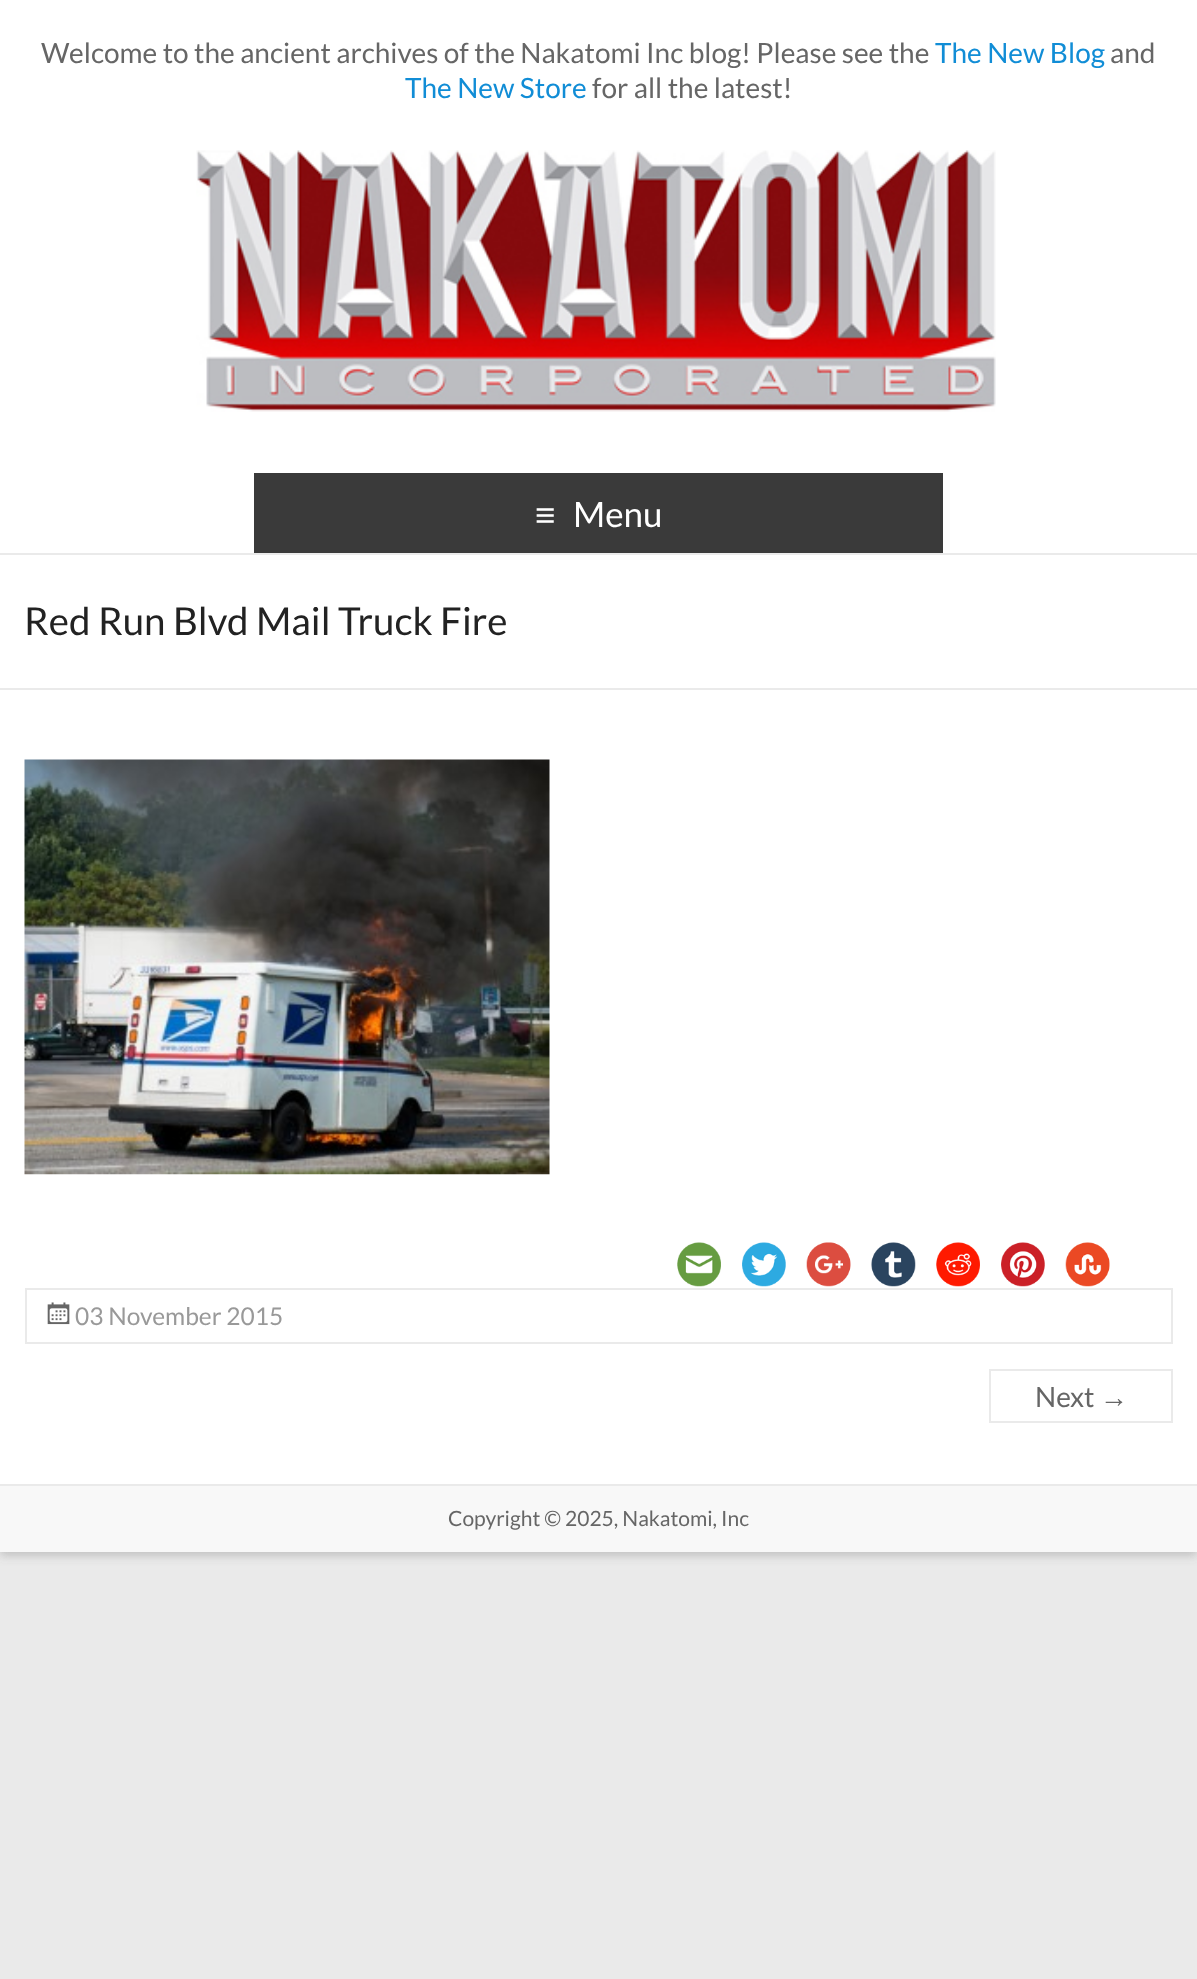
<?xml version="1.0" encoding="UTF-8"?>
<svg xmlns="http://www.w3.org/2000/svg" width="1197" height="1979">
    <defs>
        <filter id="blur1" x="-50%" y="-200%" width="200%" height="500%"><feGaussianBlur stdDeviation="5"/></filter>
    </defs>
    <rect width="100%" height="100%" fill="#EAEAEA"/>
    <rect x="0" y="4" width="1197" height="1552" fill="#646464" fill-opacity="0.3" filter="url(#blur1)"/>
    <rect x="0" y="0" width="1197" height="1484" fill="#FFFFFF"/>
    <rect x="0" y="553" width="1197" height="2" fill="#EAEAEA"/>
    <text x="41" y="63" font-family="Lato" font-size="28" fill="#666666">Welcome to the ancient archives of the Nakatomi Inc blog! Please see the</text>
    <text x="935" y="63" font-family="Lato" font-size="28" fill="#118DD6">The New Blog</text>
    <text x="1110" y="63" font-family="Lato" font-size="28" fill="#666666">and</text>
    <text x="405" y="98" font-family="Lato" font-size="28" fill="#118DD6">The New Store</text>
    <text x="592" y="98" font-family="Lato" font-size="28" fill="#666666">for all the latest!</text>
    <image x="196" y="150" width="800" height="262" href="img_01.png"/>
    <rect x="254" y="473" width="689" height="80" fill="#3A3A3A"/>
    <text x="535" y="527" font-family="Liberation Sans" font-size="35" fill="#FFFFFF">≡</text>
    <text x="573" y="527" font-family="Lato" font-size="35" fill="#FFFFFF">Menu</text>
    <rect x="0" y="688" width="1197" height="2" fill="#EAEAEA"/>
    <text x="24" y="635" font-family="Lato" font-size="38.5" fill="#222222">Red Run Blvd Mail Truck Fire</text>
    <image x="24" y="759" width="526" height="416" href="img_02.png"/>
    <image x="677" y="1242" width="44" height="45" href="img_03.png"/>
    <image x="742" y="1242" width="44" height="45" href="img_04.png"/>
    <image x="806" y="1242" width="45" height="45" href="img_05.png"/>
    <image x="871" y="1242" width="45" height="45" href="img_06.png"/>
    <image x="936" y="1242" width="44" height="45" href="img_07.png"/>
    <image x="1001" y="1242" width="44" height="45" href="img_08.png"/>
    <image x="1065" y="1242" width="45" height="45" href="img_09.png"/>
    <rect x="26" y="1289" width="1146" height="54" fill="none" stroke="#EAEAEA" stroke-width="2"/>
    <image x="47" y="1302" width="23" height="23" href="img_10.png"/>
    <text x="75" y="1325" font-family="Lato" font-size="24.5" fill="#999999">03 November 2015</text>
    <rect x="990" y="1370" width="182" height="52" fill="none" stroke="#EAEAEA" stroke-width="2"/>
    <text x="1035" y="1407" font-family="Lato" font-size="28" fill="#666666">Next</text>
    <text x="1100" y="1407" font-family="Liberation Sans" font-size="28" fill="#666666">→</text>
    <rect x="0" y="1486" width="1197" height="66" fill="#F8F8F8"/>
    <rect x="0" y="1484" width="1197" height="2" fill="#EAEAEA"/>
    <text x="448" y="1526" font-family="Lato" font-size="21" fill="#666666">Copyright © 2025, Nakatomi, Inc</text>
</svg>
